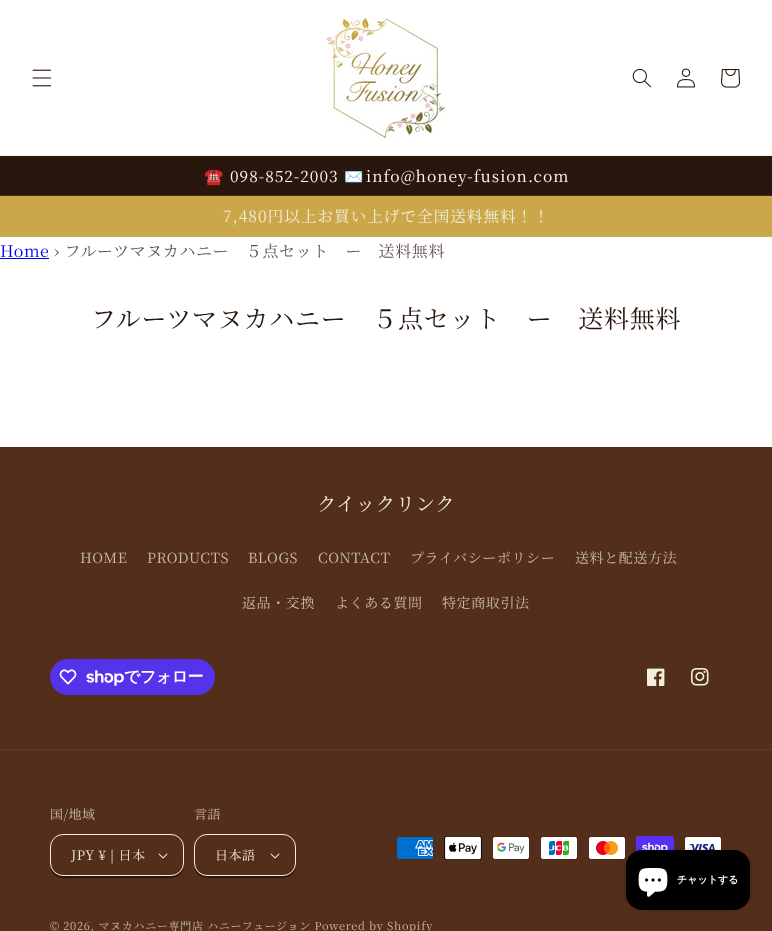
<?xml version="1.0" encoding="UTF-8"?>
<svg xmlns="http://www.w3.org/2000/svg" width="772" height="931">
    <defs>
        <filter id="blur1" x="-50%" y="-200%" width="200%" height="500%"><feGaussianBlur stdDeviation="2.5"/></filter>
    </defs>
    <rect width="100%" height="100%" fill="#FFFFFF"/>
    <rect x="0" y="155" width="772" height="1" fill="#EEECEC"/>
    <image x="32" y="69" width="20" height="18" href="img_01.png"/>
    <image x="326" y="18" width="120" height="120" href="img_02.png"/>
    <image x="632" y="68" width="19" height="20" href="img_03.png"/>
    <image x="677" y="68" width="18" height="20" href="img_04.png"/>
    <image x="721" y="69" width="20" height="19" href="img_05.png"/>
    <rect x="0" y="156" width="772" height="39" fill="#29170D"/>
    <rect x="0" y="195" width="772" height="1" fill="#3A2A20"/>
    <text x="204" y="182" font-family="Noto Color Emoji" font-size="15.6" letter-spacing="1" fill="#FFFFFF">☎️</text>
    <text x="230" y="182" font-family="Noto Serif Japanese" font-size="15.6" letter-spacing="1" fill="#FFFFFF">098-852-2003</text>
    <text x="344" y="182" font-family="Noto Color Emoji" font-size="15.6" letter-spacing="1" fill="#FFFFFF">✉️</text>
    <text x="366" y="182" font-family="Noto Serif Japanese" font-size="15.6" letter-spacing="1" fill="#FFFFFF">info@honey-fusion.com</text>
    <rect x="0" y="196" width="772" height="40" fill="#CCA749"/>
    <rect x="0" y="236" width="772" height="1" fill="#CFAD55"/>
    <text x="223" y="222" font-family="Noto Serif Japanese" font-size="15.6" letter-spacing="1" fill="#F2EFDD">7,480円以上お買い上げで全国送料無料！！</text>
    <text x="0" y="257" font-family="Noto Serif Japanese" font-size="16" letter-spacing="0.6" fill="#0000EE">Home</text>
    <rect x="0" y="258" width="49" height="1" fill="#0000EE"/>
    <text x="54" y="257" font-family="Noto Serif Japanese" font-size="16" letter-spacing="0.6" fill="#5F514A">› フルーツマヌカハニー　５点セット　ー　送料無料</text>
    <text x="91" y="328" font-family="Noto Serif Japanese" font-size="25" letter-spacing="0.75" fill="#29170D">フルーツマヌカハニー　５点セット　ー　送料無料</text>
    <rect x="0" y="447" width="772" height="484" fill="#532E1A"/>
    <text x="317" y="511" font-family="Noto Serif Japanese" font-size="19.25" letter-spacing="0.75" fill="#F2EFDD">クイックリンク</text>
    <text x="80" y="563" font-family="Noto Serif Japanese" font-size="14" letter-spacing="0.6" fill="#CABFAC">HOME</text>
    <text x="147" y="563" font-family="Noto Serif Japanese" font-size="14" letter-spacing="0.6" fill="#CABFAC">PRODUCTS</text>
    <text x="248" y="563" font-family="Noto Serif Japanese" font-size="14" letter-spacing="0.6" fill="#CABFAC">BLOGS</text>
    <text x="318" y="563" font-family="Noto Serif Japanese" font-size="14" letter-spacing="0.6" fill="#CABFAC">CONTACT</text>
    <text x="410" y="563" font-family="Noto Serif Japanese" font-size="14" letter-spacing="0.6" fill="#CABFAC">プライバシーポリシー</text>
    <text x="575" y="563" font-family="Noto Serif Japanese" font-size="14" letter-spacing="0.6" fill="#CABFAC">送料と配送方法</text>
    <text x="242" y="608" font-family="Noto Serif Japanese" font-size="14" letter-spacing="0.6" fill="#CABFAC">返品・交換</text>
    <text x="335" y="608" font-family="Noto Serif Japanese" font-size="14" letter-spacing="0.6" fill="#CABFAC">よくある質問</text>
    <text x="442" y="608" font-family="Noto Serif Japanese" font-size="14" letter-spacing="0.6" fill="#CABFAC">特定商取引法</text>
    <rect x="50" y="659" width="165" height="36" rx="18" fill="#5433EB"/>
    <image x="59" y="669" width="18" height="16" href="img_06.png"/>
    <image x="86" y="670" width="38" height="16" href="img_07.png"/>
    <text x="124" y="682" font-family="WenQuanYi Zen Hei" font-size="16" font-weight="700" letter-spacing="-0.5" fill="#FFFFFF">でフォロー</text>
    <image x="647" y="668" width="18" height="18" href="img_08.png"/>
    <image x="691" y="668" width="18" height="18" href="img_09.png"/>
    <rect x="0" y="749" width="772" height="1" fill="#603D2A"/>
    <text x="50" y="819" font-family="Noto Serif Japanese" font-size="13" letter-spacing="0.5" fill="#CABFAC">国/地域</text>
    <path d="M 50 863 C 50 882 67 878 81 878 H 153 C 167 878 184 882 184 863 C 184 870 178 876 171 876 H 63 C 56 876 50 870 50 863 Z" fill="#29170D"/>
    <rect x="50" y="834" width="134" height="42" rx="13" fill="#532E1A"/>
    <image x="158" y="853" width="10" height="6" href="img_10.png"/>
    <rect x="50.5" y="834.5" width="133" height="41" rx="12.5" fill="none" stroke="#F2EFDD"/>
    <text x="71" y="860" font-family="Noto Serif Japanese" font-size="13" letter-spacing="0.5" fill="#F2EFDD">JPY ¥ | 日本</text>
    <text x="194" y="819" font-family="Noto Serif Japanese" font-size="13" letter-spacing="0.5" fill="#CABFAC">言語</text>
    <path d="M 194 863 C 194 880 207 878 220 878 H 270 C 283 878 296 880 296 863 C 296 870 290 876 283 876 H 207 C 200 876 194 870 194 863 Z" fill="#29170D"/>
    <rect x="194" y="834" width="102" height="42" rx="13" fill="#532E1A"/>
    <image x="270" y="853" width="10" height="6" href="img_10.png"/>
    <rect x="194.5" y="834.5" width="101" height="41" rx="12.5" fill="none" stroke="#F2EFDD"/>
    <text x="215" y="860" font-family="Noto Serif Japanese" font-size="13" letter-spacing="0.5" fill="#F2EFDD">日本語</text>
    <image x="396" y="836" width="38" height="24" href="img_11.png"/>
    <image x="444" y="836" width="38" height="24" href="img_12.png"/>
    <image x="492" y="836" width="38" height="24" href="img_13.png"/>
    <image x="540" y="836" width="38" height="24" href="img_14.png"/>
    <image x="588" y="836" width="38" height="24" href="img_15.png"/>
    <image x="636" y="836" width="38" height="16" href="img_16.png"/>
    <image x="684" y="836" width="38" height="14" href="img_17.png"/>
    <text x="50" y="930" font-family="Noto Serif Japanese" font-size="11" letter-spacing="0.7" fill="#CABFAC">© 2026, マヌカハニー専門店 ハニーフュージョン Powered by Shopify</text>
    <rect x="626" y="850" width="124" height="60" rx="16" fill="#000000" fill-opacity="0.15" filter="url(#blur1)"/>
    <rect x="626" y="850" width="124" height="60" rx="16" fill="#000000"/>
    <image x="638" y="868" width="30" height="29" href="img_18.png"/>
    <text x="677" y="883" font-family="WenQuanYi Zen Hei" font-size="10" font-weight="700" fill="#FFFFFF">チャットする</text>
</svg>
